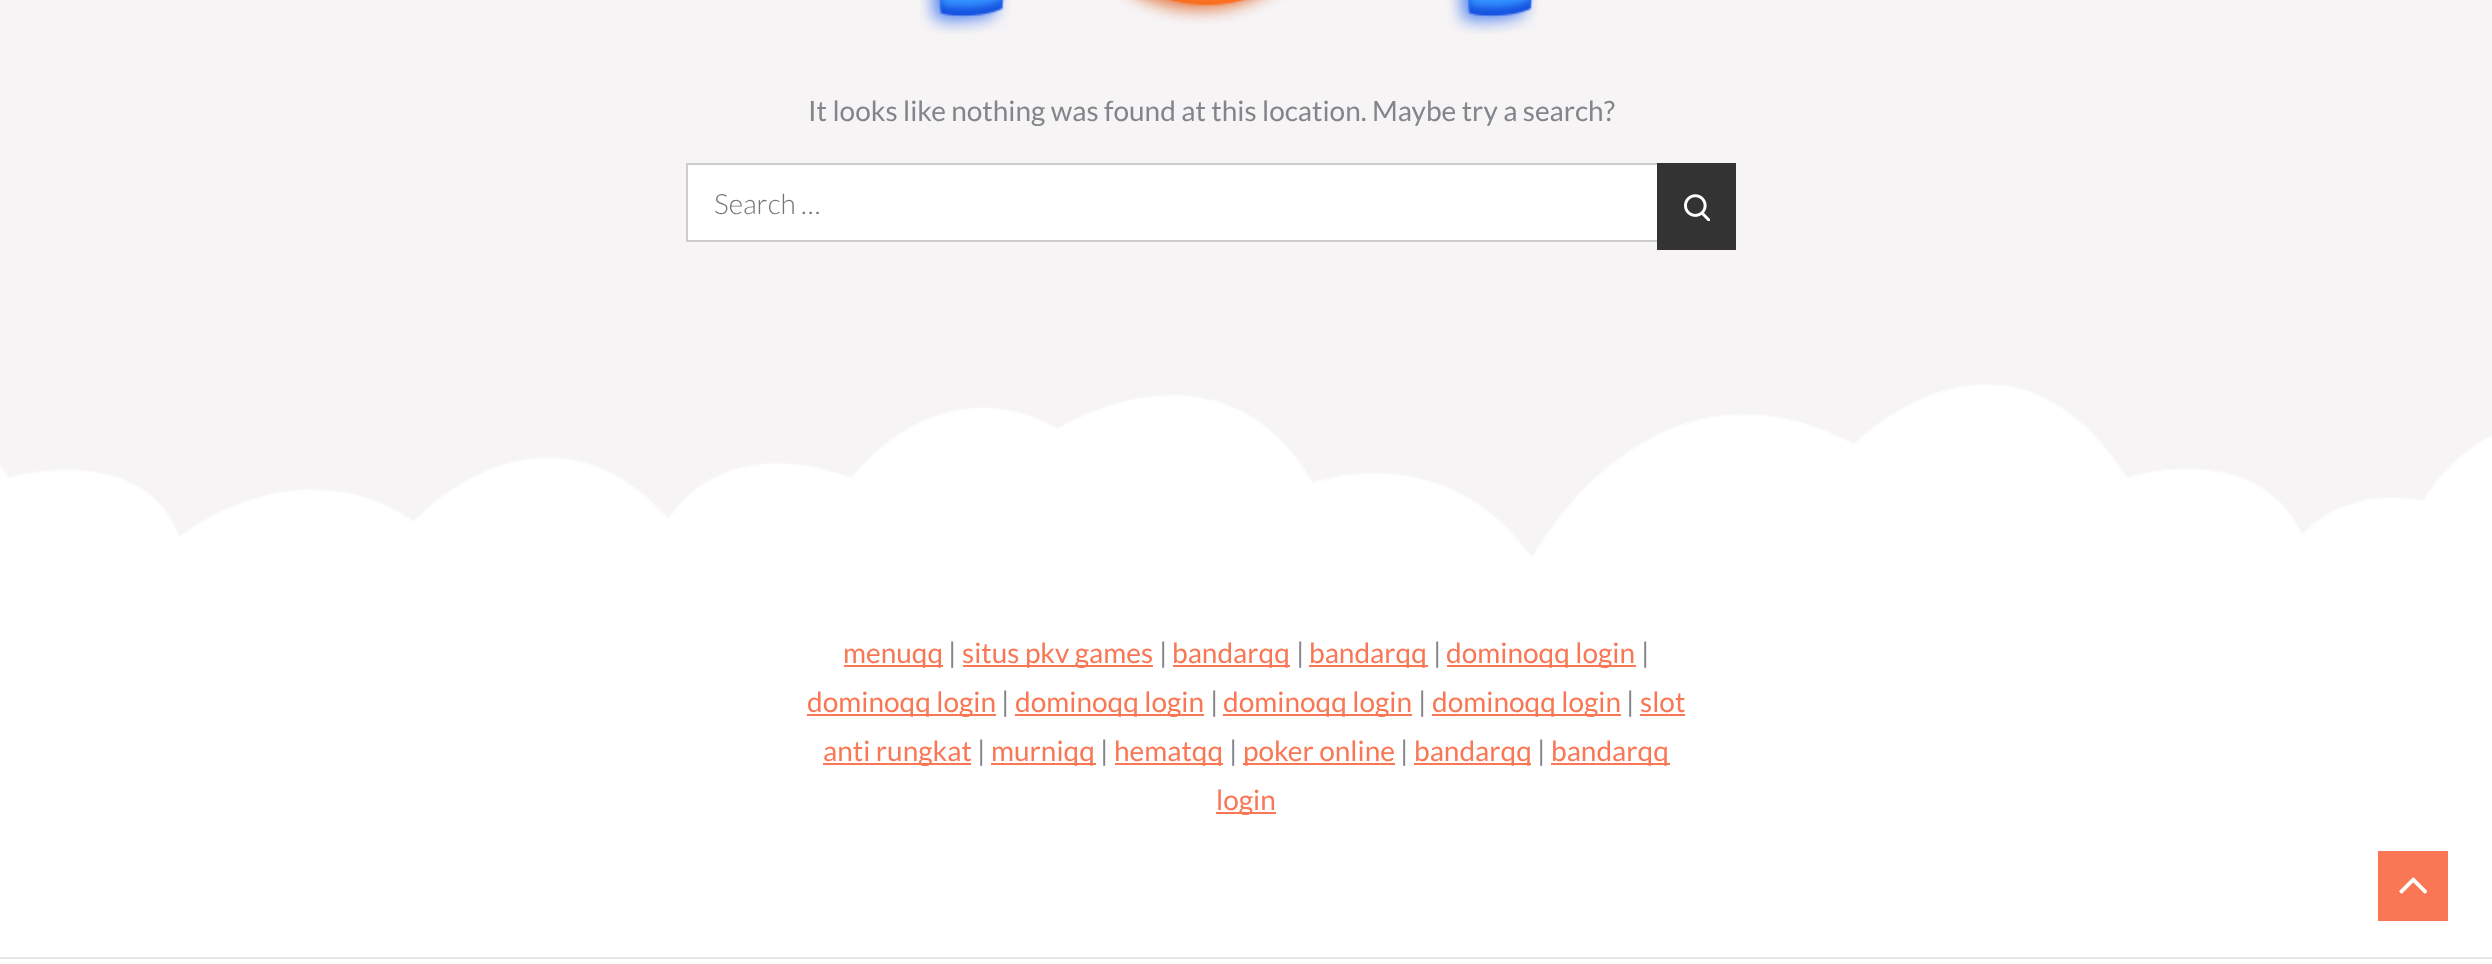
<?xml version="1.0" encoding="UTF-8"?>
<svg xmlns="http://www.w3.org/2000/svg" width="2492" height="964">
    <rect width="100%" height="100%" fill="#F6F4F5"/>
    <image x="920" y="0" width="618" height="34" href="img_01.png"/>
    <text x="808" y="121" font-family="Lato" font-size="28" fill="#82868B">It looks like nothing was found at this location. Maybe try a search?</text>
    <rect x="688" y="165" width="969" height="75" fill="#FFFFFF"/>
    <rect x="687" y="164" width="1048" height="77" fill="none" stroke="#CCCCCC" stroke-width="2"/>
    <text x="714" y="214" font-family="Lato" font-size="28" font-weight="300" fill="#757575">Search …</text>
    <rect x="1657" y="163" width="79" height="87" fill="#333333"/>
    <image x="1684" y="194" width="26" height="27" href="img_02.png"/>
    <rect x="0" y="556" width="2492" height="408" fill="#FFFFFF"/>
    <image x="0" y="382" width="2492" height="174" href="img_03.png"/>
    <rect x="844" y="665" width="99" height="2" fill="#F97755"/>
    <text x="843" y="663" font-family="Lato" font-size="28" fill="#F97755">menuqq</text>
    <text x="948" y="663" font-family="Lato" font-size="28" fill="#82868B">|</text>
    <rect x="963" y="665" width="190" height="2" fill="#F97755"/>
    <text x="962" y="663" font-family="Lato" font-size="28" fill="#F97755">situs pkv games</text>
    <text x="1159" y="663" font-family="Lato" font-size="28" fill="#82868B">|</text>
    <rect x="1173" y="665" width="117" height="2" fill="#F97755"/>
    <text x="1172" y="663" font-family="Lato" font-size="28" fill="#F97755">bandarqq</text>
    <text x="1296" y="663" font-family="Lato" font-size="28" fill="#82868B">|</text>
    <rect x="1309" y="665" width="119" height="2" fill="#F97755"/>
    <text x="1309" y="663" font-family="Lato" font-size="28" fill="#F97755">bandarqq</text>
    <text x="1433" y="663" font-family="Lato" font-size="28" fill="#82868B">|</text>
    <rect x="1447" y="665" width="189" height="2" fill="#F97755"/>
    <text x="1446" y="663" font-family="Lato" font-size="28" fill="#F97755">dominoqq login</text>
    <text x="1641" y="663" font-family="Lato" font-size="28" fill="#82868B">|</text>
    <rect x="807" y="714" width="189" height="2" fill="#F97755"/>
    <text x="807" y="712" font-family="Lato" font-size="28" fill="#F97755">dominoqq login</text>
    <text x="1001" y="712" font-family="Lato" font-size="28" fill="#82868B">|</text>
    <rect x="1015" y="714" width="189" height="2" fill="#F97755"/>
    <text x="1015" y="712" font-family="Lato" font-size="28" fill="#F97755">dominoqq login</text>
    <text x="1210" y="712" font-family="Lato" font-size="28" fill="#82868B">|</text>
    <rect x="1223" y="714" width="189" height="2" fill="#F97755"/>
    <text x="1223" y="712" font-family="Lato" font-size="28" fill="#F97755">dominoqq login</text>
    <text x="1418" y="712" font-family="Lato" font-size="28" fill="#82868B">|</text>
    <rect x="1432" y="714" width="189" height="2" fill="#F97755"/>
    <text x="1432" y="712" font-family="Lato" font-size="28" fill="#F97755">dominoqq login</text>
    <text x="1626" y="712" font-family="Lato" font-size="28" fill="#82868B">|</text>
    <text x="1640" y="712" font-family="Lato" font-size="28" fill="#F97755">slot</text>
    <rect x="1640" y="714" width="45" height="2" fill="#F97755"/>
    <rect x="823" y="763" width="148" height="2" fill="#F97755"/>
    <text x="823" y="761" font-family="Lato" font-size="28" fill="#F97755">anti rungkat</text>
    <text x="977" y="761" font-family="Lato" font-size="28" fill="#82868B">|</text>
    <rect x="991" y="763" width="105" height="2" fill="#F97755"/>
    <text x="991" y="761" font-family="Lato" font-size="28" fill="#F97755">murniqq</text>
    <text x="1100" y="761" font-family="Lato" font-size="28" fill="#82868B">|</text>
    <rect x="1115" y="763" width="108" height="2" fill="#F97755"/>
    <text x="1114" y="761" font-family="Lato" font-size="28" fill="#F97755">hematqq</text>
    <text x="1229" y="761" font-family="Lato" font-size="28" fill="#82868B">|</text>
    <rect x="1243" y="763" width="152" height="2" fill="#F97755"/>
    <text x="1243" y="761" font-family="Lato" font-size="28" fill="#F97755">poker online</text>
    <text x="1400" y="761" font-family="Lato" font-size="28" fill="#82868B">|</text>
    <rect x="1414" y="763" width="117" height="2" fill="#F97755"/>
    <text x="1414" y="761" font-family="Lato" font-size="28" fill="#F97755">bandarqq</text>
    <text x="1537" y="761" font-family="Lato" font-size="28" fill="#82868B">|</text>
    <rect x="1551" y="763" width="119" height="2" fill="#F97755"/>
    <text x="1551" y="761" font-family="Lato" font-size="28" fill="#F97755">bandarqq</text>
    <rect x="1216" y="812" width="60" height="2" fill="#F97755"/>
    <text x="1216" y="810" font-family="Lato" font-size="28" fill="#F97755">login</text>
    <rect x="2378" y="851" width="70" height="70" fill="#F97755"/>
    <image x="2399" y="877" width="28" height="17" href="img_04.png"/>
    <rect x="0" y="957" width="2492" height="2" fill="#E6E6E6"/>
</svg>
